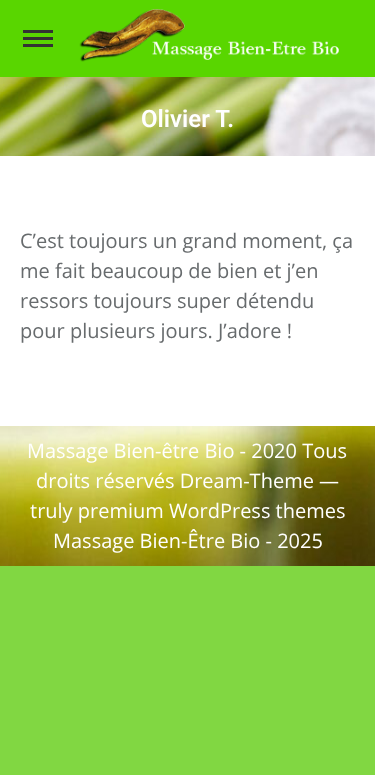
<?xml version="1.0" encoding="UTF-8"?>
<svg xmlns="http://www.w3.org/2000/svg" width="375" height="775">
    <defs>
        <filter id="blur1" x="-50%" y="-200%" width="200%" height="500%"><feGaussianBlur stdDeviation="7.5"/></filter>
    </defs>
    <rect width="100%" height="100%" fill="#81D742"/>
    <rect x="0" y="77" width="375" height="349" fill="#FFFFFF"/>
    <image x="0" y="77" width="375" height="79" href="img_02.png"/>
    <rect x="-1" y="-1" width="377" height="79" fill="#000000" fill-opacity="0.07" filter="url(#blur1)"/>
    <rect x="0" y="0" width="375" height="77" fill="#59D600"/>
    <rect x="23" y="30" width="30" height="3" fill="#333333"/>
    <rect x="23" y="37" width="30" height="3" fill="#333333"/>
    <rect x="23" y="44" width="30" height="3" fill="#333333"/>
    <image x="79" y="9" width="260" height="53" href="img_01.png"/>
    <text x="141" y="127" font-family="Roboto" font-size="24" font-weight="600" fill="#FFFFFF">Olivier T.</text>
    <text font-family="Open Sans" font-size="20" fill="#676B6D">
        <tspan x="20" y="248">C’est toujours un grand moment, ça</tspan>
        <tspan x="20" y="278">me fait beaucoup de bien et j’en</tspan>
        <tspan x="20" y="308">ressors toujours super détendu</tspan>
        <tspan x="20" y="338">pour plusieurs jours. J’adore !</tspan>
    </text>
    <image x="0" y="426" width="375" height="140" href="img_03.png"/>
    <text x="27" y="458" font-family="Open Sans" font-size="20" fill="#FFFFFF">Massage Bien-être Bio - 2020 Tous</text>
    <text x="36" y="488" font-family="Open Sans" font-size="20" fill="#FFFFFF">droits réservés Dream-Theme —</text>
    <text x="30" y="518" font-family="Open Sans" font-size="20" fill="#FFFFFF">truly premium WordPress themes</text>
    <text x="53" y="548" font-family="Open Sans" font-size="20" fill="#FFFFFF">Massage Bien-Être Bio - 2025</text>
</svg>
